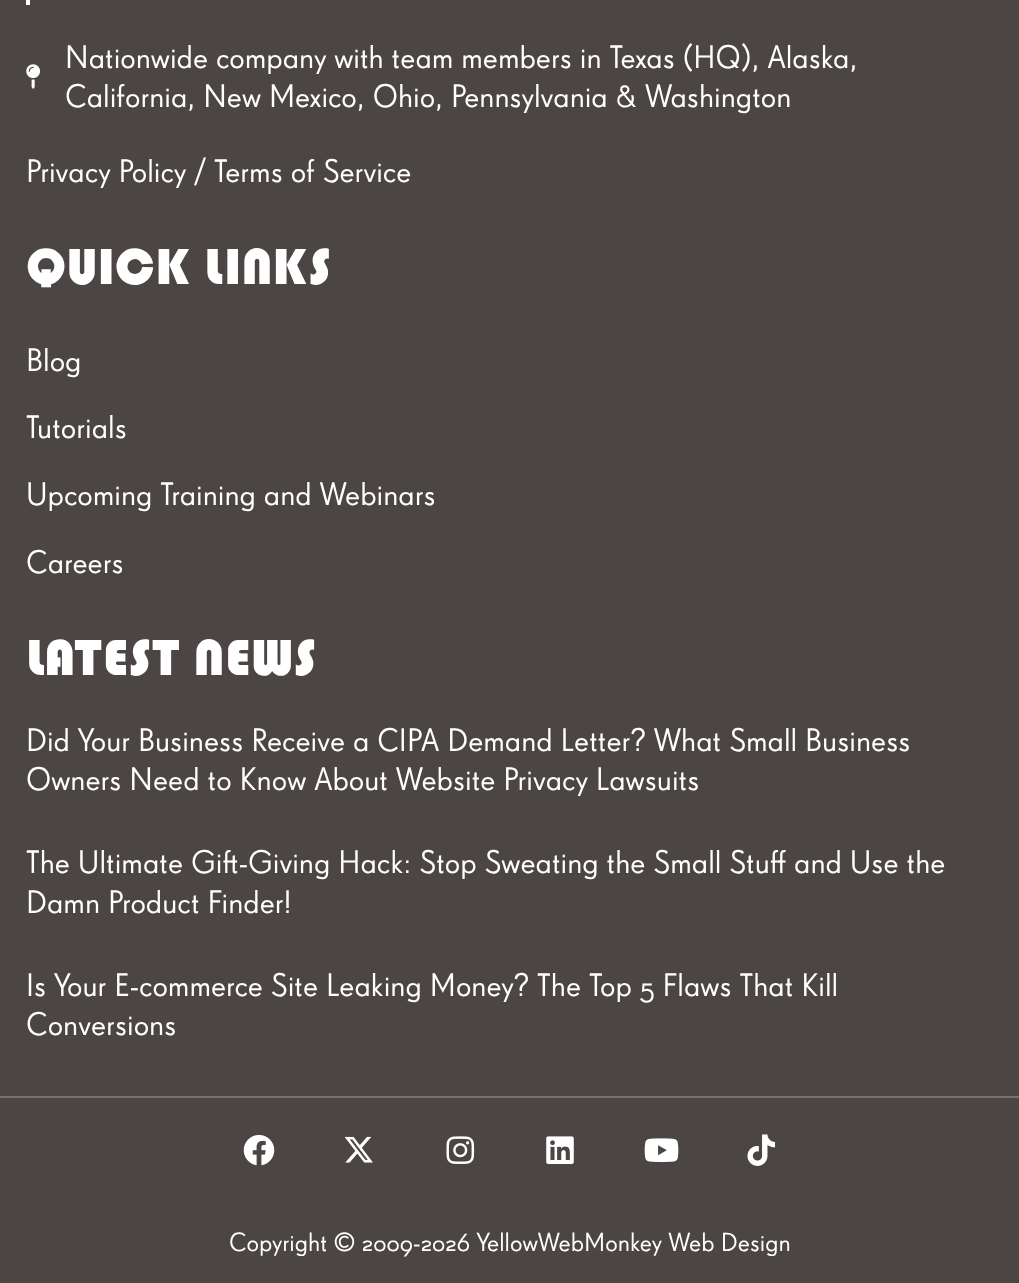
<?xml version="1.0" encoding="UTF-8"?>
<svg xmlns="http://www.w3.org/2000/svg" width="1019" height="1283">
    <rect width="100%" height="100%" fill="#4B4644"/>
    <rect x="26" y="0" width="4" height="5" fill="#FFFFFF"/>
    <image x="26" y="64" width="14" height="25" href="img_01.png"/>
    <text font-family="'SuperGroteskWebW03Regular'" font-size="31.5" fill="#FFFFFF">
        <tspan x="65" y="68">Nationwide company with team members in Texas (HQ), Alaska,</tspan>
        <tspan x="65" y="107">California, New Mexico, Ohio, Pennsylvania &amp; Washington</tspan>
    </text>
    <text x="26" y="182" font-family="'SuperGroteskWebW03Regular'" font-size="31.5" fill="#FFFFFF">Privacy Policy / Terms of Service</text>
    <text x="26" y="284" font-family="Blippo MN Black" font-size="52.5" font-weight="900" fill="#FFFFFF">QUICK LINKS</text>
    <text x="26" y="371" font-family="'SuperGroteskWebW03Regular'" font-size="31.5" fill="#FFFFFF">Blog</text>
    <text x="26" y="438" font-family="'SuperGroteskWebW03Regular'" font-size="31.5" fill="#FFFFFF">Tutorials</text>
    <text x="26" y="505" font-family="'SuperGroteskWebW03Regular'" font-size="31.5" fill="#FFFFFF">Upcoming Training and Webinars</text>
    <text x="26" y="573" font-family="'SuperGroteskWebW03Regular'" font-size="31.5" fill="#FFFFFF">Careers</text>
    <text x="26" y="675" font-family="Blippo MN Black" font-size="52.5" font-weight="900" fill="#FFFFFF">LATEST NEWS</text>
    <text font-family="'SuperGroteskWebW03Regular'" font-size="31.5" fill="#FFFFFF">
        <tspan x="26" y="751">Did Your Business Receive a CIPA Demand Letter? What Small Business</tspan>
        <tspan x="26" y="790">Owners Need to Know About Website Privacy Lawsuits</tspan>
    </text>
    <text font-family="'SuperGroteskWebW03Regular'" font-size="31.5" fill="#FFFFFF">
        <tspan x="26" y="873">The Ultimate Gift-Giving Hack: Stop Sweating the Small Stuff and Use the</tspan>
        <tspan x="26" y="913">Damn Product Finder!</tspan>
    </text>
    <text font-family="'SuperGroteskWebW03Regular'" font-size="31.5" fill="#FFFFFF">
        <tspan x="26" y="996">Is Your E-commerce Site Leaking Money? The Top 5 Flaws That Kill</tspan>
        <tspan x="26" y="1035">Conversions</tspan>
    </text>
    <rect x="0" y="1096" width="1019" height="2" fill="#747271"/>
    <image x="243" y="1134" width="32" height="32" href="img_02.png"/>
    <image x="344" y="1136" width="29" height="27" href="img_03.png"/>
    <image x="446" y="1136" width="29" height="28" href="img_04.png"/>
    <image x="546" y="1136" width="28" height="28" href="img_05.png"/>
    <image x="644" y="1138" width="35" height="24" href="img_06.png"/>
    <image x="747" y="1134" width="29" height="32" href="img_07.png"/>
    <text x="229" y="1251" font-family="'SuperGroteskWebW03Regular'" font-size="25.5" fill="#FFFFFF">Copyright © 2009-2026 YellowWebMonkey Web Design</text>
</svg>
